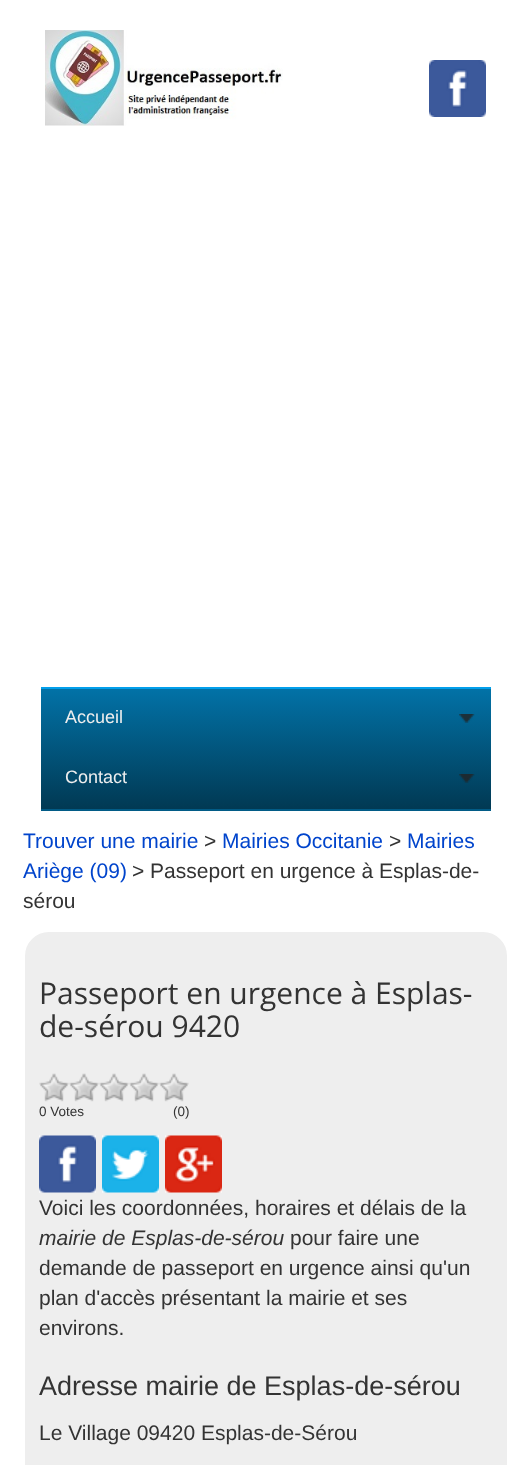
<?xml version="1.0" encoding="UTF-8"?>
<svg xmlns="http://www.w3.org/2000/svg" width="530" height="1465">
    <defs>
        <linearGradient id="g1" gradientUnits="userSpaceOnUse" x1="266" y1="689" x2="266" y2="809"><stop offset="0" stop-color="#0272A7"/><stop offset="1" stop-color="#013953"/></linearGradient>
    </defs>
    <rect width="100%" height="100%" fill="#FFFFFF"/>
    <image x="45" y="30" width="238" height="96" href="img_01.png"/>
    <image x="429" y="60" width="57" height="57" href="img_02.png"/>
    <rect x="41" y="689" width="450" height="120" fill="url(#g1)"/>
    <rect x="41" y="687" width="450" height="2" fill="#029FEB"/>
    <rect x="41" y="809" width="450" height="2" fill="#015B86"/>
    <image x="459" y="714" width="16" height="9" href="img_03.png"/>
    <text x="65" y="723" font-family="Liberation Sans" font-size="18" fill="#EEEEEE">Accueil</text>
    <image x="459" y="774" width="16" height="9" href="img_04.png"/>
    <text x="65" y="783" font-family="Liberation Sans" font-size="18" fill="#EEEEEE">Contact</text>
    <text x="23" y="848" font-family="Liberation Sans" font-size="21" fill="#0044CC">Trouver une mairie</text>
    <text x="204" y="848" font-family="Liberation Sans" font-size="21" fill="#333333">&gt;</text>
    <text x="222" y="848" font-family="Liberation Sans" font-size="21" fill="#0044CC">Mairies Occitanie</text>
    <text x="389" y="848" font-family="Liberation Sans" font-size="21" fill="#333333">&gt;</text>
    <text x="407" y="848" font-family="Liberation Sans" font-size="21" fill="#0044CC">Mairies</text>
    <text x="23" y="878" font-family="Liberation Sans" font-size="21" fill="#0044CC">Ariège (09)</text>
    <text x="132" y="878" font-family="Liberation Sans" font-size="21" fill="#333333">&gt; Passeport en urgence à Esplas-de-</text>
    <text x="23" y="908" font-family="Liberation Sans" font-size="21" fill="#333333">sérou</text>
    <rect x="24" y="931" width="484" height="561" rx="25" fill="#EEEEEE" stroke="#FFFFFF" stroke-width="2"/>
    <text font-family="Open Sans" font-size="30" fill="#333333">
        <tspan x="39" y="1004">Passeport en urgence à Esplas-</tspan>
        <tspan x="39" y="1037">de-sérou 9420</tspan>
    </text>
    <image x="39" y="1073" width="150" height="29" href="img_05.png"/>
    <text x="39" y="1116" font-family="Liberation Sans" font-size="13.5" fill="#333333">0 Votes</text>
    <text x="173" y="1116" font-family="Liberation Sans" font-size="13.5" fill="#333333">(0)</text>
    <image x="39" y="1135" width="57" height="58" href="img_06.png"/>
    <image x="102" y="1135" width="57" height="58" href="img_07.png"/>
    <image x="165" y="1135" width="57" height="58" href="img_08.png"/>
    <text x="39" y="1215" font-family="Liberation Sans" font-size="21" fill="#333333">Voici les coordonnées, horaires et délais de la</text>
    <text x="39" y="1245" font-family="Liberation Sans" font-size="21" font-style="italic" fill="#333333">mairie de Esplas-de-sérou</text>
    <text x="290" y="1245" font-family="Liberation Sans" font-size="21" fill="#333333">pour faire une</text>
    <text font-family="Liberation Sans" font-size="21" fill="#333333">
        <tspan x="39" y="1275">demande de passeport en urgence ainsi qu'un</tspan>
        <tspan x="39" y="1305">plan d'accès présentant la mairie et ses</tspan>
        <tspan x="39" y="1335">environs.</tspan>
    </text>
    <text x="39" y="1395" font-family="Liberation Sans" font-size="27" fill="#333333">Adresse mairie de Esplas-de-sérou</text>
    <text x="39" y="1440" font-family="Liberation Sans" font-size="21" fill="#333333">Le Village 09420 Esplas-de-Sérou</text>
</svg>
